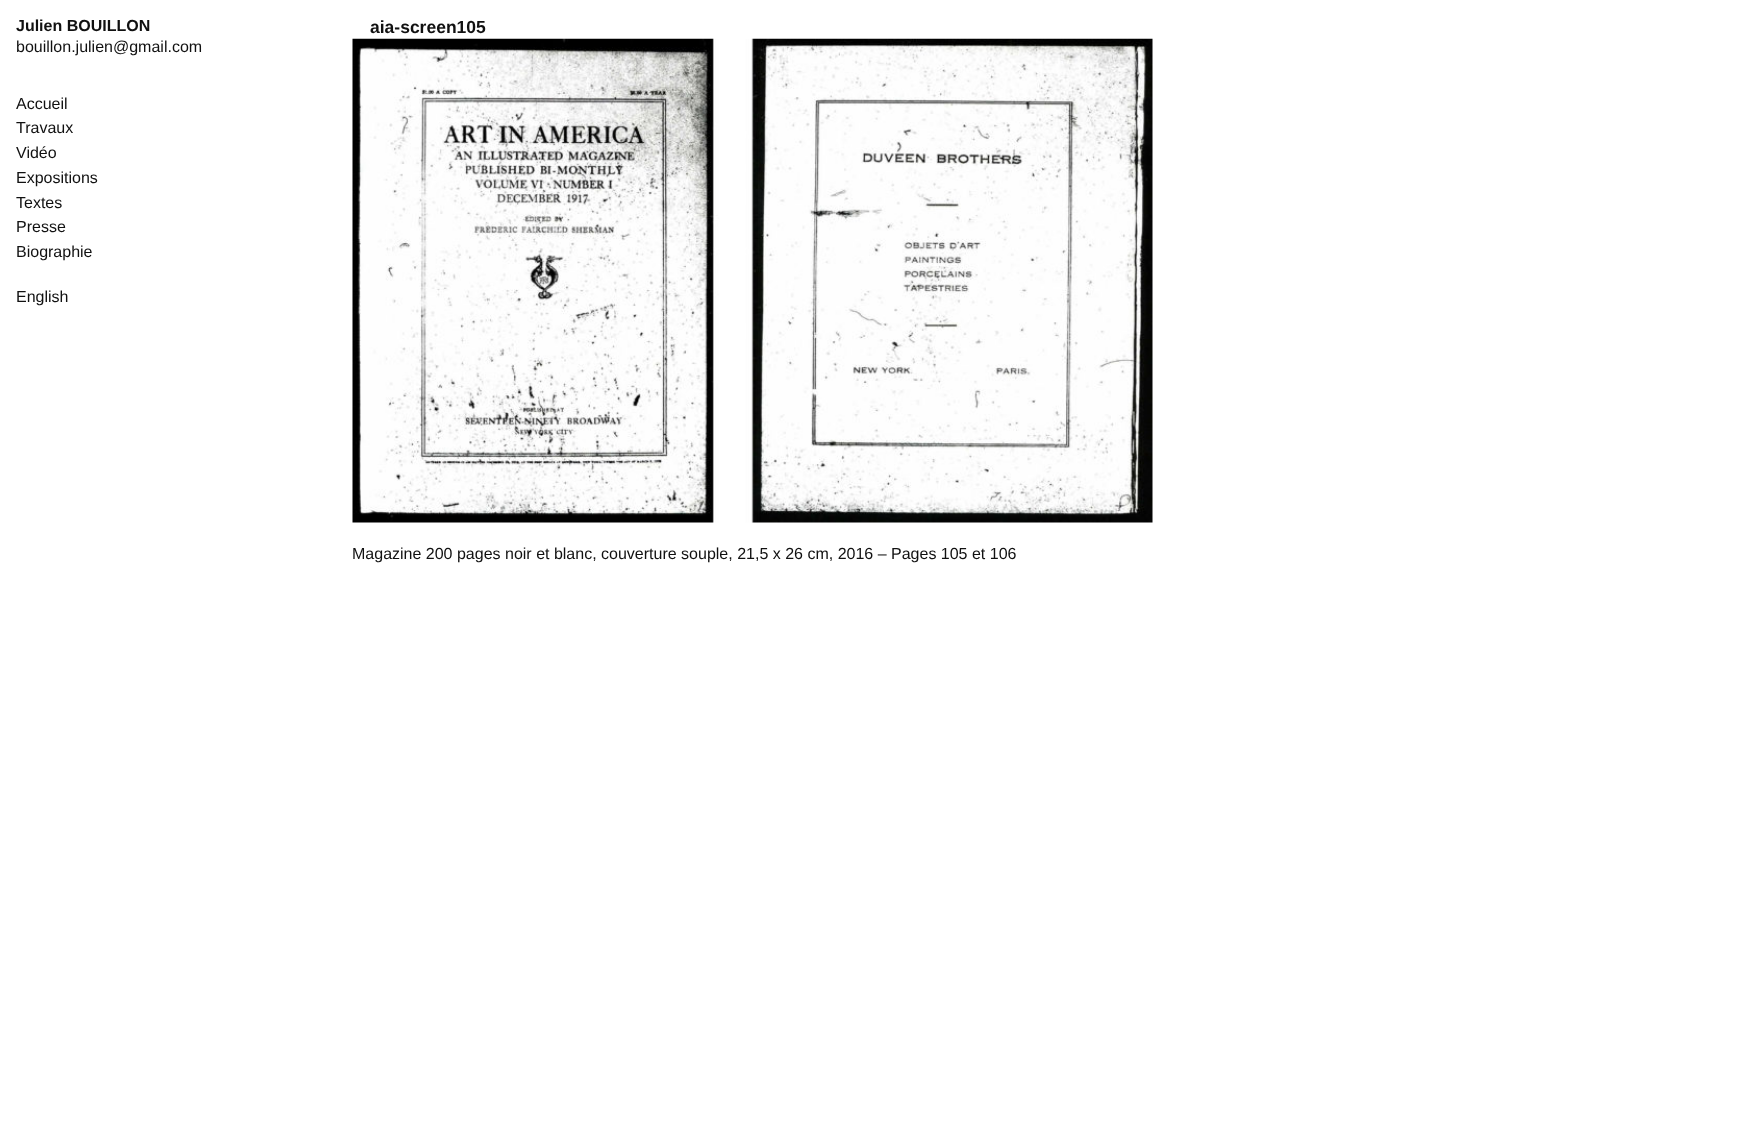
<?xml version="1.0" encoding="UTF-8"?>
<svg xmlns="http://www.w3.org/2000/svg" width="1753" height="1139">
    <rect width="100%" height="100%" fill="#FFFFFF"/>
    <text x="16" y="31" font-family="Liberation Sans" font-size="16" font-weight="700" fill="#111111">Julien BOUILLON</text>
    <text x="16" y="52" font-family="Liberation Sans" font-size="16" fill="#111111">bouillon.julien@gmail.com</text>
    <text font-family="Liberation Sans" font-size="16" fill="#111111">
        <tspan x="16" y="109">Accueil</tspan>
        <tspan x="16" y="133">Travaux</tspan>
        <tspan x="16" y="158">Vidéo</tspan>
        <tspan x="16" y="183">Expositions</tspan>
        <tspan x="16" y="208">Textes</tspan>
        <tspan x="16" y="232">Presse</tspan>
        <tspan x="16" y="257">Biographie</tspan>
    </text>
    <text x="16" y="302" font-family="Liberation Sans" font-size="16" fill="#111111">English</text>
    <text x="370" y="33" font-family="Liberation Sans" font-size="17.5" font-weight="700" fill="#111111">aia-screen105</text>
    <image x="352" y="38" width="801" height="485" href="img_01.png"/>
    <text x="352" y="559" font-family="Liberation Sans" font-size="16" fill="#111111">Magazine 200 pages noir et blanc, couverture souple, 21,5 x 26 cm, 2016 – Pages 105 et 106</text>
</svg>
